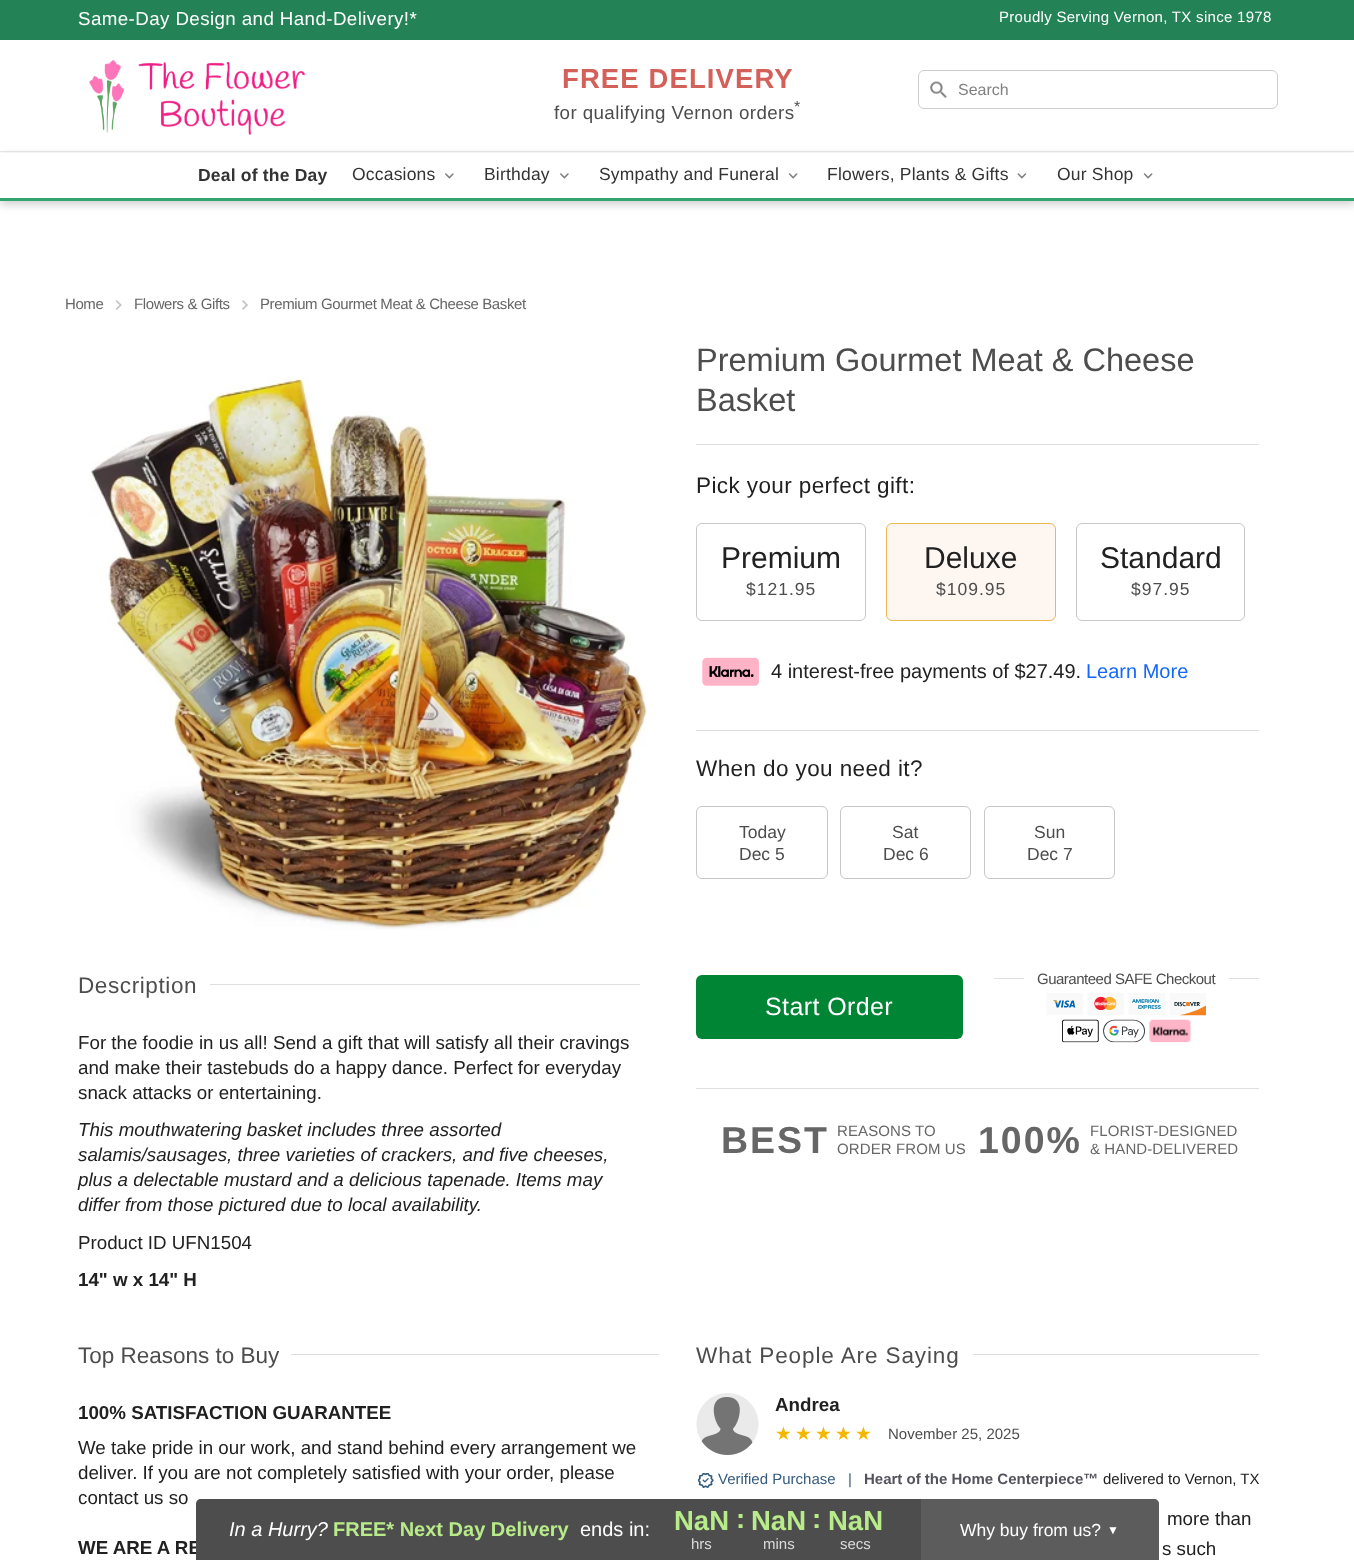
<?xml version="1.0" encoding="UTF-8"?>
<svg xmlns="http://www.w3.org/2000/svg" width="1354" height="1560">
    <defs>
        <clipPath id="clip1"><path d="M 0 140 H 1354 V 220 H 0 Z M 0 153 H 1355 V 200 H 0 Z" clip-rule="evenodd"/></clipPath>
        <filter id="blur1" x="-50%" y="-200%" width="200%" height="500%"><feGaussianBlur stdDeviation="5"/></filter>
    </defs>
    <rect width="100%" height="100%" fill="#FFFFFF"/>
    <rect x="0" y="0" width="1354" height="40" fill="#238357"/>
    <text x="78" y="25" font-family="Liberation Sans" font-size="18.75" letter-spacing="0.4" fill="#FFFFFF">Same-Day Design and Hand-Delivery!*</text>
    <text x="999" y="22" font-family="Liberation Sans" font-size="15" letter-spacing="0.3" fill="#FFFFFF">Proudly Serving Vernon, TX since 1978</text>
    <rect x="0" y="151" width="1354" height="1" fill="#EAEAEA"/>
    <image x="89" y="59" width="217" height="76" href="img_01.png"/>
    <text x="562" y="88" font-family="Liberation Sans" font-size="27.5" font-weight="700" letter-spacing="1.1" fill="#D4605A">FREE DELIVERY</text>
    <text x="794" y="112" font-family="Liberation Sans" font-size="16" letter-spacing="0.4" fill="#4D4D4D">*</text>
    <text x="554" y="119" font-family="Liberation Sans" font-size="18.75" letter-spacing="0.4" fill="#4D4D4D">for qualifying Vernon orders</text>
    <image x="930" y="81" width="18" height="18" href="img_02.png"/>
    <rect x="918.5" y="70.5" width="359" height="38" rx="5.5" fill="none" stroke="#CDCDCD"/>
    <text x="958" y="95" font-family="Liberation Sans" font-size="16" fill="#818181">Search</text>
    <g clip-path="url(#clip1)">
        <rect x="0" y="156" width="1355" height="48" fill="#000000" fill-opacity="0.2" filter="url(#blur1)"/>
    </g>
    <rect x="0" y="198" width="1354" height="3" fill="#33A370"/>
    <text x="198" y="181" font-family="Liberation Sans" font-size="17.5" font-weight="700" letter-spacing="0.2" fill="#333333">Deal of the Day</text>
    <text x="352" y="180" font-family="Liberation Sans" font-size="17.5" letter-spacing="0.2" fill="#333333">Occasions</text>
    <image x="445" y="173" width="9" height="6" href="img_03.png"/>
    <text x="484" y="180" font-family="Liberation Sans" font-size="17.5" letter-spacing="0.2" fill="#333333">Birthday</text>
    <image x="560" y="173" width="9" height="6" href="img_03.png"/>
    <text x="599" y="180" font-family="Liberation Sans" font-size="17.5" letter-spacing="0.2" fill="#333333">Sympathy and Funeral</text>
    <image x="788" y="173" width="10" height="6" href="img_04.png"/>
    <text x="827" y="180" font-family="Liberation Sans" font-size="17.5" letter-spacing="0.2" fill="#333333">Flowers, Plants &amp; Gifts</text>
    <image x="1017" y="173" width="10" height="6" href="img_05.png"/>
    <text x="1057" y="180" font-family="Liberation Sans" font-size="17.5" letter-spacing="0.2" fill="#333333">Our Shop</text>
    <image x="1143" y="173" width="10" height="6" href="img_04.png"/>
    <text x="65" y="309" font-family="Liberation Sans" font-size="15" letter-spacing="-0.4" fill="#666666">Home</text>
    <image x="115" y="300" width="7" height="10" href="img_06.png"/>
    <text x="134" y="309" font-family="Liberation Sans" font-size="15" letter-spacing="-0.4" fill="#666666">Flowers &amp; Gifts</text>
    <image x="242" y="300" width="6" height="10" href="img_07.png"/>
    <text x="260" y="309" font-family="Liberation Sans" font-size="15" letter-spacing="-0.4" fill="#666666">Premium Gourmet Meat &amp; Cheese Basket</text>
    <image x="90" y="376" width="557" height="554" href="img_08.png"/>
    <text x="78" y="993" font-family="Liberation Sans" font-size="22.5" letter-spacing="0.6" fill="#4D4D4D">Description</text>
    <rect x="210" y="984" width="430" height="1" fill="#DEDEDE"/>
    <text font-family="Liberation Sans" font-size="18.75" fill="#212121">
        <tspan x="78" y="1049">For the foodie in us all! Send a gift that will satisfy all their cravings</tspan>
        <tspan x="78" y="1074">and make their tastebuds do a happy dance. Perfect for everyday</tspan>
        <tspan x="78" y="1099">snack attacks or entertaining.</tspan>
    </text>
    <text font-family="Liberation Sans" font-size="18.75" font-style="italic" fill="#212121">
        <tspan x="78" y="1136">This mouthwatering basket includes three assorted</tspan>
        <tspan x="78" y="1161">salamis/sausages, three varieties of crackers, and five cheeses,</tspan>
        <tspan x="78" y="1186">plus a delectable mustard and a delicious tapenade. Items may</tspan>
        <tspan x="78" y="1211">differ from those pictured due to local availability.</tspan>
    </text>
    <text x="78" y="1249" font-family="Liberation Sans" font-size="18.75" fill="#212121">Product ID UFN1504</text>
    <text x="78" y="1286" font-family="Liberation Sans" font-size="18.75" font-weight="700" fill="#212121">14" w x 14" H</text>
    <text font-family="Liberation Sans" font-size="32.5" fill="#4D4D4D">
        <tspan x="696" y="371">Premium Gourmet Meat &amp; Cheese</tspan>
        <tspan x="696" y="411">Basket</tspan>
    </text>
    <rect x="696" y="444" width="563" height="1" fill="#DEDEDE"/>
    <text x="696" y="493" font-family="Liberation Sans" font-size="22.5" letter-spacing="0.4" fill="#212121">Pick your perfect gift:</text>
    <rect x="696.5" y="523.5" width="169" height="97" rx="5.5" fill="none" stroke="#C7C7C7"/>
    <text x="721" y="568" font-family="Liberation Sans" font-size="30" fill="#212121">Premium</text>
    <text x="746" y="595" font-family="Liberation Sans" font-size="17.5" letter-spacing="1" fill="#4D4D4D">$121.95</text>
    <rect x="886.5" y="523.5" width="169" height="97" rx="5.5" fill="#FEF7F1" stroke="#ECB650"/>
    <text x="924" y="568" font-family="Liberation Sans" font-size="30" fill="#212121">Deluxe</text>
    <text x="936" y="595" font-family="Liberation Sans" font-size="17.5" letter-spacing="1" fill="#4D4D4D">$109.95</text>
    <rect x="1076.5" y="523.5" width="168" height="97" rx="5.5" fill="none" stroke="#C7C7C7"/>
    <text x="1100" y="568" font-family="Liberation Sans" font-size="30" fill="#212121">Standard</text>
    <text x="1131" y="595" font-family="Liberation Sans" font-size="17.5" letter-spacing="1" fill="#4D4D4D">$97.95</text>
    <image x="702" y="657" width="57" height="29" href="img_09.png"/>
    <text x="771" y="678" font-family="Liberation Sans" font-size="20" fill="#212121">4 interest-free payments of $27.49.</text>
    <text x="1086" y="678" font-family="Liberation Sans" font-size="20" fill="#1368FB">Learn More</text>
    <rect x="696" y="730" width="563" height="1" fill="#DEDEDE"/>
    <text x="696" y="776" font-family="Liberation Sans" font-size="22.5" letter-spacing="0.4" fill="#212121">When do you need it?</text>
    <rect x="696.5" y="806.5" width="131" height="72" rx="5.5" fill="none" stroke="#C7C7C7"/>
    <text font-family="Liberation Sans" font-size="17.5" fill="#4D4D4D">
        <tspan x="739" y="838">Today</tspan>
        <tspan x="739" y="860">Dec 5</tspan>
    </text>
    <rect x="840.5" y="806.5" width="130" height="72" rx="5.5" fill="none" stroke="#C7C7C7"/>
    <text x="892" y="838" font-family="Liberation Sans" font-size="17.5" fill="#4D4D4D">Sat</text>
    <text x="883" y="860" font-family="Liberation Sans" font-size="17.5" fill="#4D4D4D">Dec 6</text>
    <rect x="984.5" y="806.5" width="130" height="72" rx="5.5" fill="none" stroke="#C7C7C7"/>
    <text x="1034" y="838" font-family="Liberation Sans" font-size="17.5" fill="#4D4D4D">Sun</text>
    <text x="1027" y="860" font-family="Liberation Sans" font-size="17.5" fill="#4D4D4D">Dec 7</text>
    <rect x="994" y="978" width="265" height="1" fill="#E0E0E0"/>
    <rect x="1024" y="978" width="205" height="1" fill="#FFFFFF"/>
    <text x="1037" y="984" font-family="Liberation Sans" font-size="15" letter-spacing="-0.5" fill="#4D4D4D">Guaranteed SAFE Checkout</text>
    <image x="1046" y="993" width="160" height="50" href="img_10.png"/>
    <rect x="696" y="975" width="267" height="64" rx="6" fill="#008535"/>
    <text x="765" y="1015" font-family="Liberation Sans" font-size="25" letter-spacing="0.4" fill="#FFFFFF">Start Order</text>
    <rect x="696" y="1088" width="563" height="1" fill="#DEDEDE"/>
    <text x="721" y="1153" font-family="Liberation Sans" font-size="37.5" font-weight="700" letter-spacing="2" fill="#666666">BEST</text>
    <text font-family="Liberation Sans" font-size="15" letter-spacing="0.1" fill="#666666">
        <tspan x="837" y="1136">REASONS TO</tspan>
        <tspan x="837" y="1154">ORDER FROM US</tspan>
    </text>
    <text x="978" y="1153" font-family="Liberation Sans" font-size="37.5" font-weight="700" letter-spacing="2" fill="#666666">100%</text>
    <text font-family="Liberation Sans" font-size="15" letter-spacing="0.1" fill="#666666">
        <tspan x="1090" y="1136">FLORIST-DESIGNED</tspan>
        <tspan x="1090" y="1154">&amp; HAND-DELIVERED</tspan>
    </text>
    <text x="78" y="1363" font-family="Liberation Sans" font-size="22.5" fill="#4D4D4D">Top Reasons to Buy</text>
    <rect x="291" y="1354" width="368" height="1" fill="#DEDEDE"/>
    <text x="78" y="1419" font-family="Liberation Sans" font-size="18.75" font-weight="700" fill="#212121">100% SATISFACTION GUARANTEE</text>
    <text font-family="Liberation Sans" font-size="18.75" fill="#212121">
        <tspan x="78" y="1454">We take pride in our work, and stand behind every arrangement we</tspan>
        <tspan x="78" y="1479">deliver. If you are not completely satisfied with your order, please</tspan>
        <tspan x="78" y="1504">contact us so</tspan>
    </text>
    <text x="78" y="1554" font-family="Liberation Sans" font-size="18.75" font-weight="700" fill="#212121">WE ARE A RE</text>
    <text x="696" y="1363" font-family="Liberation Sans" font-size="22.5" letter-spacing="0.9" fill="#4D4D4D">What People Are Saying</text>
    <rect x="973" y="1354" width="286" height="1" fill="#DEDEDE"/>
    <image x="696" y="1393" width="63" height="62" href="img_11.png"/>
    <text x="775" y="1411" font-family="Liberation Sans" font-size="18.75" font-weight="700" fill="#212121">Andrea</text>
    <text x="775" y="1440" font-family="DejaVu Sans" font-size="18.75" fill="#F4B700">★</text>
    <text x="795" y="1440" font-family="DejaVu Sans" font-size="18.75" fill="#F4B700">★</text>
    <text x="815" y="1440" font-family="DejaVu Sans" font-size="18.75" fill="#F4B700">★</text>
    <text x="835" y="1440" font-family="DejaVu Sans" font-size="18.75" fill="#F4B700">★</text>
    <text x="855" y="1440" font-family="DejaVu Sans" font-size="18.75" fill="#F4B700">★</text>
    <text x="888" y="1439" font-family="Liberation Sans" font-size="15" fill="#4D4D4D">November 25, 2025</text>
    <image x="698" y="1473" width="16" height="15" href="img_12.png"/>
    <text x="718" y="1484" font-family="Liberation Sans" font-size="15" fill="#355C7D">Verified Purchase</text>
    <text x="848" y="1484" font-family="Liberation Sans" font-size="15" fill="#355C7D">|</text>
    <text x="864" y="1484" font-family="Liberation Sans" font-size="15" font-weight="700" fill="#53535E">Heart of the Home Centerpiece™</text>
    <text x="1103" y="1484" font-family="Liberation Sans" font-size="15" fill="#212121">delivered to Vernon, TX</text>
    <text x="1167" y="1525" font-family="Liberation Sans" font-size="18.75" fill="#212121">more than</text>
    <text x="1162" y="1555" font-family="Liberation Sans" font-size="18.75" fill="#212121">s such</text>
    <path d="M 201 1499 H 921 V 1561 H 196 V 1504 C 196 1501 198 1499 201 1499 Z" fill="#4D4D4D"/>
    <text x="229" y="1536" font-family="Liberation Sans" font-size="20" font-style="italic" fill="#FFFFFF">In a Hurry?</text>
    <text x="333" y="1536" font-family="Liberation Sans" font-size="20" font-weight="700" fill="#B8EB89">FREE* Next Day Delivery</text>
    <text x="580" y="1536" font-family="Liberation Sans" font-size="20" fill="#FFFFFF">ends in:</text>
    <text x="674" y="1530" font-family="Liberation Sans" font-size="27.5" font-weight="700" fill="#B8EB89">NaN</text>
    <text x="691" y="1549" font-family="Liberation Sans" font-size="15" fill="#DBDBDB">hrs</text>
    <text x="736" y="1528" font-family="Liberation Sans" font-size="27.5" font-weight="700" fill="#B8EB89">:</text>
    <text x="751" y="1530" font-family="Liberation Sans" font-size="27.5" font-weight="700" fill="#B8EB89">NaN</text>
    <text x="763" y="1549" font-family="Liberation Sans" font-size="15" fill="#DBDBDB">mins</text>
    <text x="812" y="1528" font-family="Liberation Sans" font-size="27.5" font-weight="700" fill="#B8EB89">:</text>
    <text x="828" y="1530" font-family="Liberation Sans" font-size="27.5" font-weight="700" fill="#B8EB89">NaN</text>
    <text x="840" y="1549" font-family="Liberation Sans" font-size="15" fill="#DBDBDB">secs</text>
    <path d="M 921 1499 H 1154 C 1157 1499 1159 1501 1159 1504 V 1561 H 921 Z" fill="#5C5C5C"/>
    <text x="960" y="1536" font-family="Liberation Sans" font-size="17.5" fill="#FFFFFF">Why buy from us?</text>
    <text x="1107" y="1534" font-family="Liberation Sans" font-size="12" fill="#FFFFFF">▼</text>
</svg>
